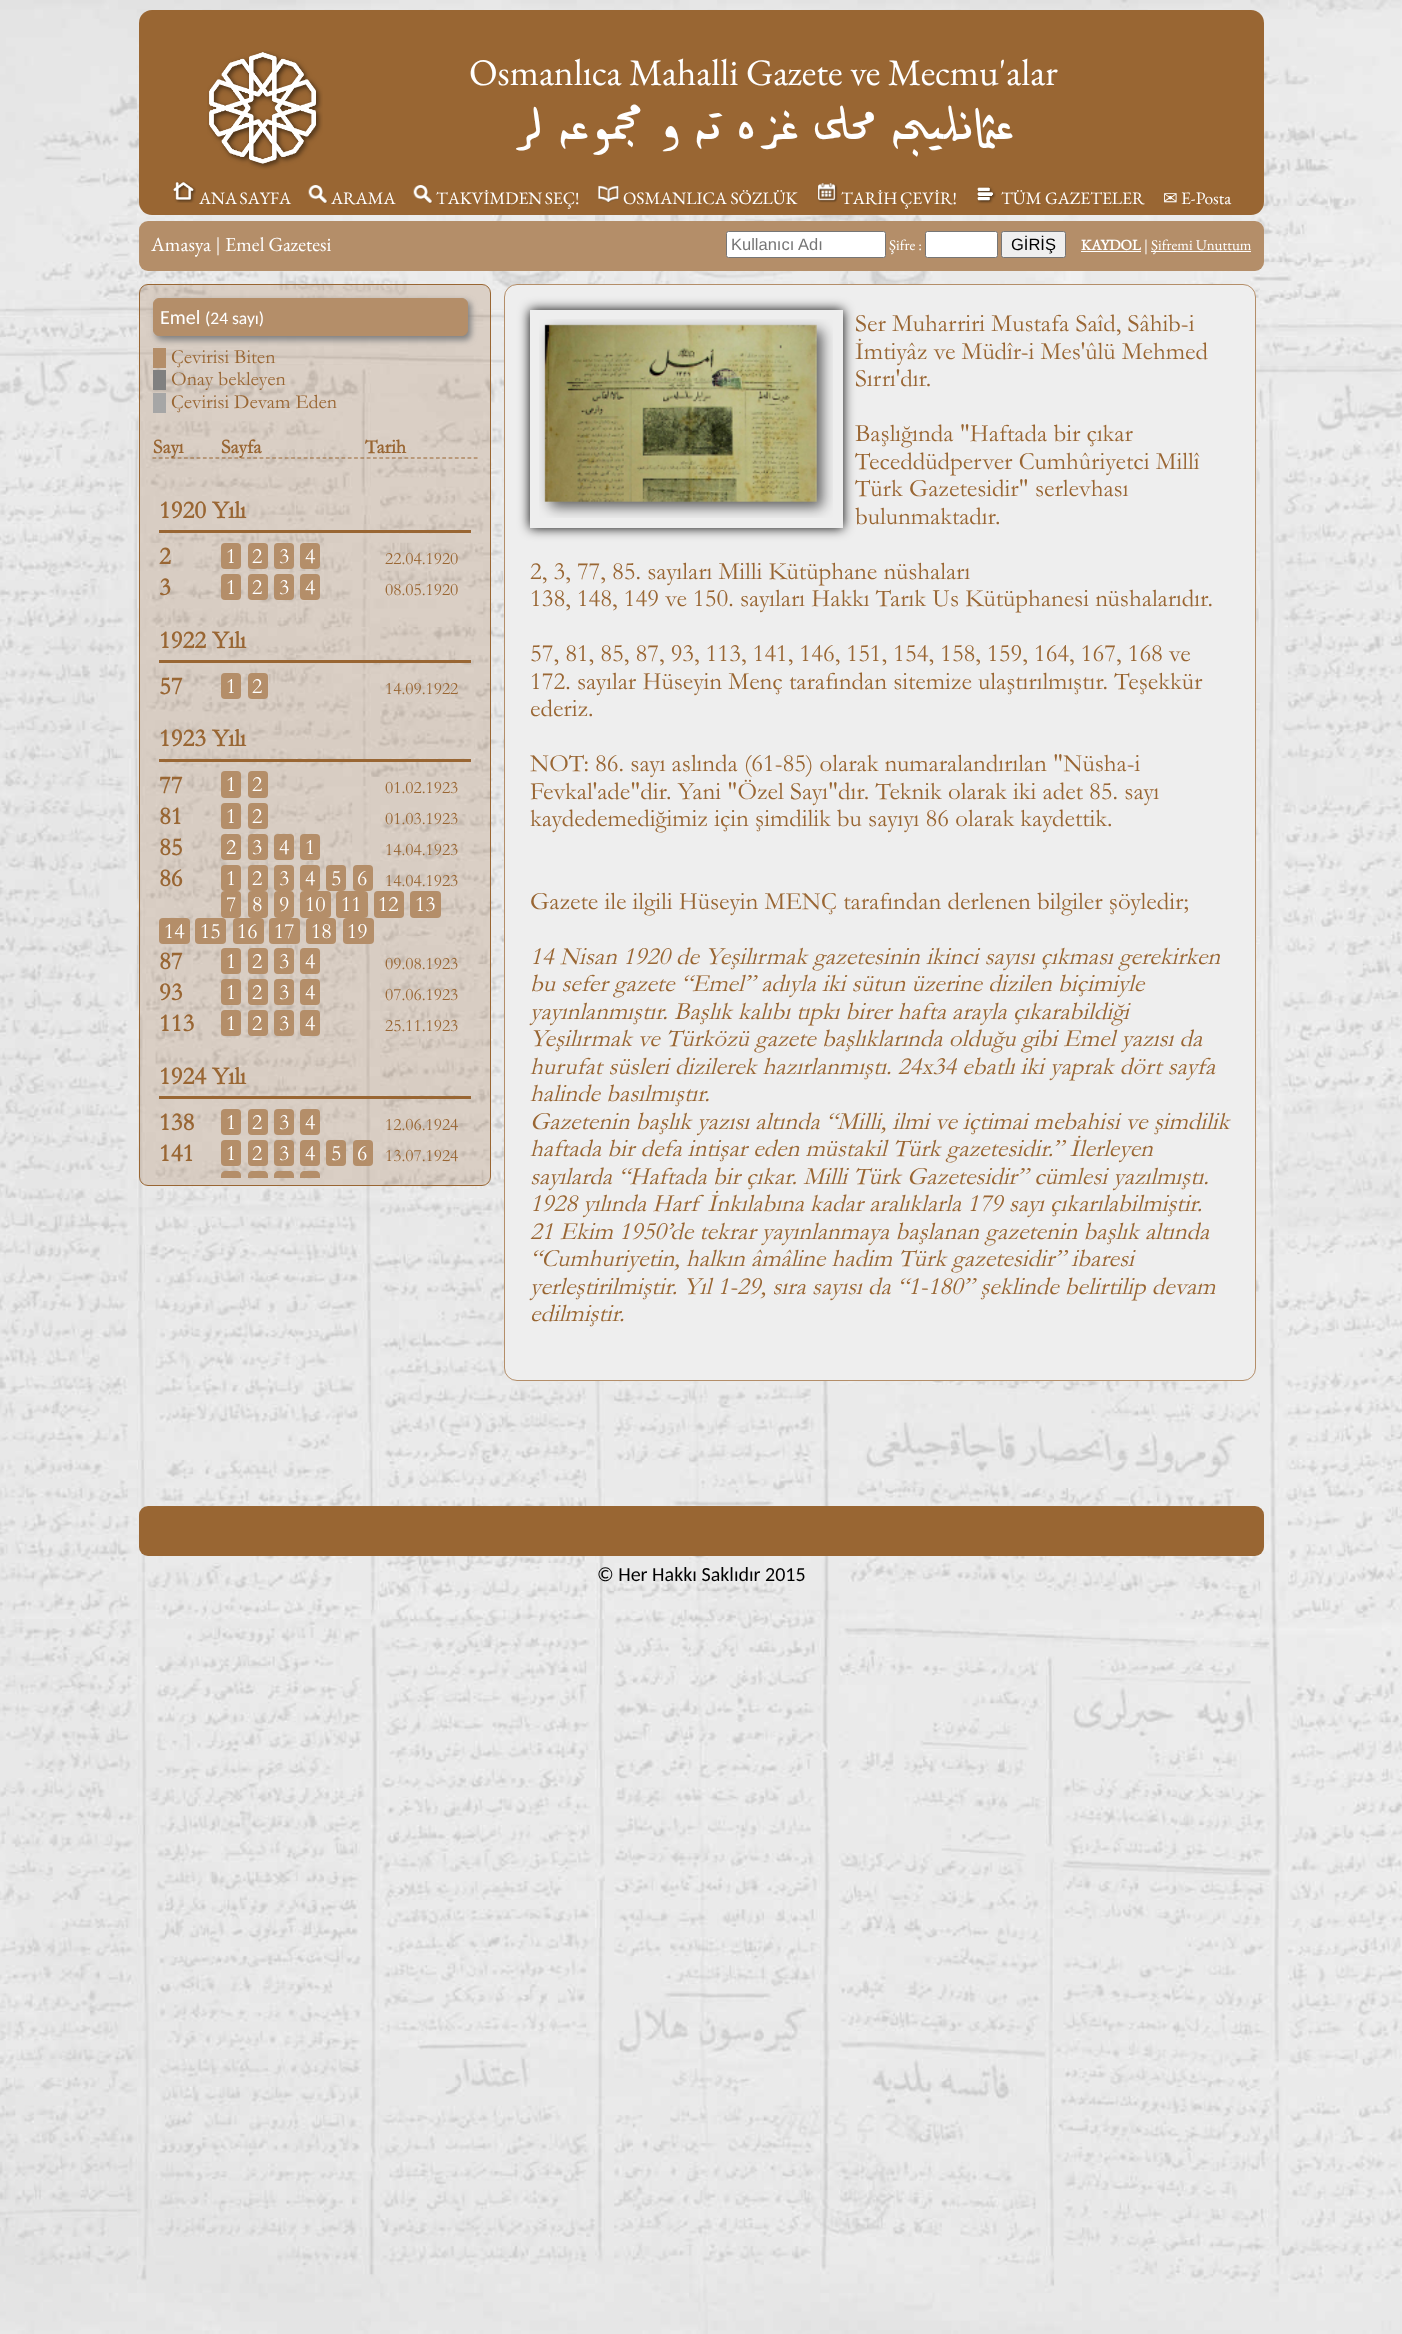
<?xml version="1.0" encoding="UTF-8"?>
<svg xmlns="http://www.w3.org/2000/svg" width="1402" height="2334">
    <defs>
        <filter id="blur1" x="-50%" y="-200%" width="200%" height="500%"><feGaussianBlur stdDeviation="3"/></filter>
        <clipPath id="clip1"><path d="M 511 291 H 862 V 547 H 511 Z M 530 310 H 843 V 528 H 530 Z" clip-rule="evenodd"/></clipPath>
        <filter id="blur2" x="-50%" y="-200%" width="200%" height="500%"><feGaussianBlur stdDeviation="6"/></filter>
    </defs>
    <rect width="100%" height="100%" fill="#FFFFFF"/>
    <image x="0" y="0" width="1402" height="2334" href="img_01.png"/>
    <rect x="139" y="10" width="1125" height="205" rx="13" fill="#996633"/>
    <image x="207" y="51" width="116" height="119" href="img_02.png"/>
    <text x="469" y="85" font-family="EB Garamond" font-size="37.5" fill="#FFFFFF">Osmanlıca Mahalli Gazete ve Mecmu'alar</text>
    <text x="1014" y="139" font-family="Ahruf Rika" font-size="75" direction="rtl" fill="#FFFFFF">عثمانليجه محلي غزه ته و مجموعه لر</text>
    <image x="173" y="181" width="23" height="22" href="img_03.png"/>
    <text x="199" y="204" word-spacing="-1" font-family="EB Garamond" font-size="17.5" fill="#FFFFFF">ANA SAYFA</text>
    <image x="308" y="185" width="20" height="19" href="img_04.png"/>
    <text x="331" y="204" font-family="EB Garamond" font-size="17.5" fill="#FFFFFF">ARAMA</text>
    <image x="413" y="185" width="20" height="19" href="img_04.png"/>
    <text x="436" y="204" word-spacing="-1" font-family="EB Garamond" font-size="17.5" fill="#FFFFFF">TAKVİMDEN SEÇ!</text>
    <image x="598" y="185" width="21" height="18" href="img_05.png"/>
    <text x="623" y="204" font-family="EB Garamond" font-size="17.5" fill="#FFFFFF">OSMANLICA SÖZLÜK</text>
    <image x="817" y="183" width="21" height="20" href="img_06.png"/>
    <text x="841" y="204" word-spacing="-1" font-family="EB Garamond" font-size="17.5" fill="#FFFFFF">TARİH ÇEVİR!</text>
    <image x="977" y="186" width="19" height="18" href="img_07.png"/>
    <text x="1001" y="204" font-family="EB Garamond" font-size="17.5" fill="#FFFFFF">TÜM GAZETELER</text>
    <text x="1163" y="204" font-family="DejaVu Sans" font-size="17.5" fill="#FFFFFF">✉</text>
    <text x="1181" y="204" font-family="EB Garamond" font-size="17.5" fill="#FFFFFF">E-Posta</text>
    <rect x="139" y="221" width="1125" height="50" rx="9" fill="#B48E69"/>
    <text x="151" y="251" font-family="EB Garamond" font-size="20" fill="#FFFFFF">Amasya</text>
    <text x="216" y="251" font-family="Liberation Serif" font-size="20" fill="#FFFFFF">|</text>
    <text x="225" y="251" font-family="EB Garamond" font-size="20" fill="#FFFFFF">Emel Gazetesi</text>
    <rect x="726.5" y="231.5" width="159" height="26" rx="2" fill="#FFFFFF" stroke="#767676"/>
    <text x="731" y="250" font-family="Liberation Sans" font-size="16.5" fill="#757575">Kullanıcı Adı</text>
    <text x="889" y="250" font-family="EB Garamond" font-size="15" fill="#FFFFFF">Şifre :</text>
    <rect x="925.5" y="231.5" width="72" height="26" rx="2" fill="#FFFFFF" stroke="#767676"/>
    <rect x="1001.5" y="231.5" width="64" height="26" rx="2" fill="#EFEFEF" stroke="#767676"/>
    <text x="1011" y="250" font-family="Liberation Sans" font-size="16.5" fill="#000000">GİRİŞ</text>
    <text x="1081" y="250" font-family="EB Garamond" font-size="15" font-weight="700" fill="#FFFFFF">KAYDOL</text>
    <rect x="1081" y="251" width="60" height="1" fill="#FFFFFF"/>
    <text x="1144" y="250" font-family="EB Garamond" font-size="15" fill="#FFFFFF">|</text>
    <rect x="1151" y="251" width="100" height="1" fill="#FFFFFF"/>
    <text x="1151" y="250" font-family="EB Garamond" font-size="15" fill="#FFFFFF">Şifremi Unuttum</text>
    <rect x="139.5" y="284.5" width="351" height="901" rx="8.5" fill="#996633" fill-opacity="0.2" stroke="#996633"/>
    <rect x="156" y="301" width="315" height="39" rx="6" fill="#808080" filter="url(#blur1)"/>
    <rect x="153.5" y="298.5" width="314" height="37" rx="5.5" fill="#B48E69" stroke="#B48E69"/>
    <text x="160" y="324" font-family="Carlito" font-size="20" fill="#FFFFFF">Emel</text>
    <text x="205" y="324" font-family="Carlito" font-size="17.5" fill="#FFFFFF">(24 sayı)</text>
    <rect x="153" y="348" width="13" height="20" fill="#B48E69"/>
    <text x="171" y="363" font-family="Garamond" font-size="20" fill="#996633">Çevirisi Biten</text>
    <rect x="153" y="370" width="13" height="20" fill="#808080"/>
    <text x="171" y="385" font-family="Garamond" font-size="20" fill="#996633">Onay bekleyen</text>
    <rect x="153" y="393" width="13" height="20" fill="#A6A6A6"/>
    <text x="171" y="408" font-family="Garamond" font-size="20" fill="#996633">Çevirisi Devam Eden</text>
    <path d="M 152.5 458 H 477.5" fill="none" stroke="#996633" stroke-width="1.2" stroke-dasharray="3.75 2.55"/>
    <text x="153" y="453" font-family="Garamond" font-size="20" font-weight="700" fill="#996633">Sayı</text>
    <text x="221" y="453" font-family="Garamond" font-size="20" font-weight="700" fill="#996633">Sayfa</text>
    <text x="365" y="453" font-family="Garamond" font-size="20" font-weight="700" fill="#996633">Tarih</text>
    <rect x="159" y="530" width="312" height="3" fill="#996633"/>
    <text font-family="Garamond" font-size="25" font-weight="700" fill="#996633">
        <tspan x="159" y="518">1920 Yılı</tspan>
        <tspan x="159" y="564">2</tspan>
    </text>
    <rect x="221" y="543" width="20" height="26" rx="4" fill="#B48E69"/>
    <text x="226" y="563" font-family="Garamond" font-size="22" fill="#FFFFFF">1</text>
    <rect x="248" y="543" width="20" height="26" rx="4" fill="#B48E69"/>
    <text x="252" y="563" font-family="Garamond" font-size="22" fill="#FFFFFF">2</text>
    <rect x="274" y="543" width="20" height="26" rx="4" fill="#B48E69"/>
    <text x="279" y="563" font-family="Garamond" font-size="22" fill="#FFFFFF">3</text>
    <rect x="300" y="543" width="20" height="26" rx="4" fill="#B48E69"/>
    <text x="305" y="563" font-family="Garamond" font-size="22" fill="#FFFFFF">4</text>
    <text x="385" y="564" font-family="Garamond" font-size="17.5" fill="#996633">22.04.1920</text>
    <text x="159" y="595" font-family="Garamond" font-size="25" font-weight="700" fill="#996633">3</text>
    <rect x="221" y="574" width="20" height="26" rx="4" fill="#B48E69"/>
    <text x="226" y="594" font-family="Garamond" font-size="22" fill="#FFFFFF">1</text>
    <rect x="248" y="574" width="20" height="26" rx="4" fill="#B48E69"/>
    <text x="252" y="594" font-family="Garamond" font-size="22" fill="#FFFFFF">2</text>
    <rect x="274" y="574" width="20" height="26" rx="4" fill="#B48E69"/>
    <text x="279" y="594" font-family="Garamond" font-size="22" fill="#FFFFFF">3</text>
    <rect x="300" y="574" width="20" height="26" rx="4" fill="#B48E69"/>
    <text x="305" y="594" font-family="Garamond" font-size="22" fill="#FFFFFF">4</text>
    <text x="385" y="595" font-family="Garamond" font-size="17.5" fill="#996633">08.05.1920</text>
    <rect x="159" y="660" width="312" height="3" fill="#996633"/>
    <text font-family="Garamond" font-size="25" font-weight="700" fill="#996633">
        <tspan x="159" y="648">1922 Yılı</tspan>
        <tspan x="159" y="694">57</tspan>
    </text>
    <rect x="221" y="673" width="20" height="26" rx="4" fill="#B48E69"/>
    <text x="226" y="693" font-family="Garamond" font-size="22" fill="#FFFFFF">1</text>
    <rect x="248" y="673" width="20" height="26" rx="4" fill="#B48E69"/>
    <text x="252" y="693" font-family="Garamond" font-size="22" fill="#FFFFFF">2</text>
    <text x="385" y="694" font-family="Garamond" font-size="17.5" fill="#996633">14.09.1922</text>
    <rect x="159" y="759" width="312" height="3" fill="#996633"/>
    <text font-family="Garamond" font-size="25" font-weight="700" fill="#996633">
        <tspan x="159" y="746">1923 Yılı</tspan>
        <tspan x="159" y="793">77</tspan>
    </text>
    <rect x="221" y="771" width="20" height="27" rx="4" fill="#B48E69"/>
    <text x="226" y="791" font-family="Garamond" font-size="22" fill="#FFFFFF">1</text>
    <rect x="248" y="771" width="20" height="27" rx="4" fill="#B48E69"/>
    <text x="252" y="791" font-family="Garamond" font-size="22" fill="#FFFFFF">2</text>
    <text x="385" y="793" font-family="Garamond" font-size="17.5" fill="#996633">01.02.1923</text>
    <text x="159" y="824" font-family="Garamond" font-size="25" font-weight="700" fill="#996633">81</text>
    <rect x="221" y="803" width="20" height="26" rx="4" fill="#B48E69"/>
    <text x="226" y="823" font-family="Garamond" font-size="22" fill="#FFFFFF">1</text>
    <rect x="248" y="803" width="20" height="26" rx="4" fill="#B48E69"/>
    <text x="252" y="823" font-family="Garamond" font-size="22" fill="#FFFFFF">2</text>
    <text x="385" y="824" font-family="Garamond" font-size="17.5" fill="#996633">01.03.1923</text>
    <text x="159" y="855" font-family="Garamond" font-size="25" font-weight="700" fill="#996633">85</text>
    <rect x="221" y="834" width="20" height="26" rx="4" fill="#B48E69"/>
    <text x="226" y="854" font-family="Garamond" font-size="22" fill="#FFFFFF">2</text>
    <rect x="248" y="834" width="20" height="26" rx="4" fill="#B48E69"/>
    <text x="252" y="854" font-family="Garamond" font-size="22" fill="#FFFFFF">3</text>
    <rect x="274" y="834" width="20" height="26" rx="4" fill="#B48E69"/>
    <text x="279" y="854" font-family="Garamond" font-size="22" fill="#FFFFFF">4</text>
    <rect x="300" y="834" width="20" height="26" rx="4" fill="#B48E69"/>
    <text x="305" y="854" font-family="Garamond" font-size="22" fill="#FFFFFF">1</text>
    <text x="385" y="855" font-family="Garamond" font-size="17.5" fill="#996633">14.04.1923</text>
    <text x="159" y="886" font-family="Garamond" font-size="25" font-weight="700" fill="#996633">86</text>
    <rect x="221" y="865" width="20" height="26" rx="4" fill="#B48E69"/>
    <text x="226" y="885" font-family="Garamond" font-size="22" fill="#FFFFFF">1</text>
    <rect x="248" y="865" width="20" height="26" rx="4" fill="#B48E69"/>
    <text x="252" y="885" font-family="Garamond" font-size="22" fill="#FFFFFF">2</text>
    <rect x="274" y="865" width="20" height="26" rx="4" fill="#B48E69"/>
    <text x="279" y="885" font-family="Garamond" font-size="22" fill="#FFFFFF">3</text>
    <rect x="300" y="865" width="20" height="26" rx="4" fill="#B48E69"/>
    <text x="305" y="885" font-family="Garamond" font-size="22" fill="#FFFFFF">4</text>
    <rect x="326" y="865" width="20" height="26" rx="4" fill="#B48E69"/>
    <text x="331" y="885" font-family="Garamond" font-size="22" fill="#FFFFFF">5</text>
    <rect x="353" y="865" width="20" height="26" rx="4" fill="#B48E69"/>
    <text x="357" y="885" font-family="Garamond" font-size="22" fill="#FFFFFF">6</text>
    <text x="385" y="886" font-family="Garamond" font-size="17.5" fill="#996633">14.04.1923</text>
    <rect x="221" y="891" width="20" height="27" rx="4" fill="#B48E69"/>
    <text x="226" y="911" font-family="Garamond" font-size="22" fill="#FFFFFF">7</text>
    <rect x="248" y="891" width="20" height="27" rx="4" fill="#B48E69"/>
    <text x="252" y="911" font-family="Garamond" font-size="22" fill="#FFFFFF">8</text>
    <rect x="274" y="891" width="20" height="27" rx="4" fill="#B48E69"/>
    <text x="279" y="911" font-family="Garamond" font-size="22" fill="#FFFFFF">9</text>
    <rect x="300" y="891" width="31" height="27" rx="4" fill="#B48E69"/>
    <text x="305" y="911" font-family="Garamond" font-size="22" fill="#FFFFFF">10</text>
    <rect x="336" y="891" width="32" height="27" rx="4" fill="#B48E69"/>
    <text x="341" y="911" font-family="Garamond" font-size="22" fill="#FFFFFF">11</text>
    <rect x="374" y="891" width="30" height="27" rx="4" fill="#B48E69"/>
    <text x="378" y="911" font-family="Garamond" font-size="22" fill="#FFFFFF">12</text>
    <rect x="410" y="891" width="31" height="27" rx="4" fill="#B48E69"/>
    <text x="415" y="911" font-family="Garamond" font-size="22" fill="#FFFFFF">13</text>
    <rect x="159" y="918" width="31" height="26" rx="4" fill="#B48E69"/>
    <text x="164" y="938" font-family="Garamond" font-size="22" fill="#FFFFFF">14</text>
    <rect x="195" y="918" width="31" height="26" rx="4" fill="#B48E69"/>
    <text x="200" y="938" font-family="Garamond" font-size="22" fill="#FFFFFF">15</text>
    <rect x="233" y="918" width="31" height="26" rx="4" fill="#B48E69"/>
    <text x="237" y="938" font-family="Garamond" font-size="22" fill="#FFFFFF">16</text>
    <rect x="269" y="918" width="31" height="26" rx="4" fill="#B48E69"/>
    <text x="274" y="938" font-family="Garamond" font-size="22" fill="#FFFFFF">17</text>
    <rect x="306" y="918" width="30" height="26" rx="4" fill="#B48E69"/>
    <text x="311" y="938" font-family="Garamond" font-size="22" fill="#FFFFFF">18</text>
    <rect x="343" y="918" width="31" height="26" rx="4" fill="#B48E69"/>
    <text x="347" y="938" font-family="Garamond" font-size="22" fill="#FFFFFF">19</text>
    <text x="159" y="969" font-family="Garamond" font-size="25" font-weight="700" fill="#996633">87</text>
    <rect x="221" y="948" width="20" height="26" rx="4" fill="#B48E69"/>
    <text x="226" y="968" font-family="Garamond" font-size="22" fill="#FFFFFF">1</text>
    <rect x="248" y="948" width="20" height="26" rx="4" fill="#B48E69"/>
    <text x="252" y="968" font-family="Garamond" font-size="22" fill="#FFFFFF">2</text>
    <rect x="274" y="948" width="20" height="26" rx="4" fill="#B48E69"/>
    <text x="279" y="968" font-family="Garamond" font-size="22" fill="#FFFFFF">3</text>
    <rect x="300" y="948" width="20" height="26" rx="4" fill="#B48E69"/>
    <text x="305" y="968" font-family="Garamond" font-size="22" fill="#FFFFFF">4</text>
    <text x="385" y="969" font-family="Garamond" font-size="17.5" fill="#996633">09.08.1923</text>
    <text x="159" y="1000" font-family="Garamond" font-size="25" font-weight="700" fill="#996633">93</text>
    <rect x="221" y="979" width="20" height="26" rx="4" fill="#B48E69"/>
    <text x="226" y="999" font-family="Garamond" font-size="22" fill="#FFFFFF">1</text>
    <rect x="248" y="979" width="20" height="26" rx="4" fill="#B48E69"/>
    <text x="252" y="999" font-family="Garamond" font-size="22" fill="#FFFFFF">2</text>
    <rect x="274" y="979" width="20" height="26" rx="4" fill="#B48E69"/>
    <text x="279" y="999" font-family="Garamond" font-size="22" fill="#FFFFFF">3</text>
    <rect x="300" y="979" width="20" height="26" rx="4" fill="#B48E69"/>
    <text x="305" y="999" font-family="Garamond" font-size="22" fill="#FFFFFF">4</text>
    <text x="385" y="1000" font-family="Garamond" font-size="17.5" fill="#996633">07.06.1923</text>
    <text x="159" y="1031" font-family="Garamond" font-size="25" font-weight="700" fill="#996633">113</text>
    <rect x="221" y="1010" width="20" height="26" rx="4" fill="#B48E69"/>
    <text x="226" y="1030" font-family="Garamond" font-size="22" fill="#FFFFFF">1</text>
    <rect x="248" y="1010" width="20" height="26" rx="4" fill="#B48E69"/>
    <text x="252" y="1030" font-family="Garamond" font-size="22" fill="#FFFFFF">2</text>
    <rect x="274" y="1010" width="20" height="26" rx="4" fill="#B48E69"/>
    <text x="279" y="1030" font-family="Garamond" font-size="22" fill="#FFFFFF">3</text>
    <rect x="300" y="1010" width="20" height="26" rx="4" fill="#B48E69"/>
    <text x="305" y="1030" font-family="Garamond" font-size="22" fill="#FFFFFF">4</text>
    <text x="385" y="1031" font-family="Garamond" font-size="17.5" fill="#996633">25.11.1923</text>
    <rect x="159" y="1096" width="312" height="3" fill="#996633"/>
    <text font-family="Garamond" font-size="25" font-weight="700" fill="#996633">
        <tspan x="159" y="1084">1924 Yılı</tspan>
        <tspan x="159" y="1130">138</tspan>
    </text>
    <rect x="221" y="1109" width="20" height="26" rx="4" fill="#B48E69"/>
    <text x="226" y="1129" font-family="Garamond" font-size="22" fill="#FFFFFF">1</text>
    <rect x="248" y="1109" width="20" height="26" rx="4" fill="#B48E69"/>
    <text x="252" y="1129" font-family="Garamond" font-size="22" fill="#FFFFFF">2</text>
    <rect x="274" y="1109" width="20" height="26" rx="4" fill="#B48E69"/>
    <text x="279" y="1129" font-family="Garamond" font-size="22" fill="#FFFFFF">3</text>
    <rect x="300" y="1109" width="20" height="26" rx="4" fill="#B48E69"/>
    <text x="305" y="1129" font-family="Garamond" font-size="22" fill="#FFFFFF">4</text>
    <text x="385" y="1130" font-family="Garamond" font-size="17.5" fill="#996633">12.06.1924</text>
    <text x="159" y="1161" font-family="Garamond" font-size="25" font-weight="700" fill="#996633">141</text>
    <rect x="221" y="1140" width="20" height="26" rx="4" fill="#B48E69"/>
    <text x="226" y="1160" font-family="Garamond" font-size="22" fill="#FFFFFF">1</text>
    <rect x="248" y="1140" width="20" height="26" rx="4" fill="#B48E69"/>
    <text x="252" y="1160" font-family="Garamond" font-size="22" fill="#FFFFFF">2</text>
    <rect x="274" y="1140" width="20" height="26" rx="4" fill="#B48E69"/>
    <text x="279" y="1160" font-family="Garamond" font-size="22" fill="#FFFFFF">3</text>
    <rect x="300" y="1140" width="20" height="26" rx="4" fill="#B48E69"/>
    <text x="305" y="1160" font-family="Garamond" font-size="22" fill="#FFFFFF">4</text>
    <rect x="326" y="1140" width="20" height="26" rx="4" fill="#B48E69"/>
    <text x="331" y="1160" font-family="Garamond" font-size="22" fill="#FFFFFF">5</text>
    <rect x="353" y="1140" width="20" height="26" rx="4" fill="#B48E69"/>
    <text x="357" y="1160" font-family="Garamond" font-size="22" fill="#FFFFFF">6</text>
    <text x="385" y="1161" font-family="Garamond" font-size="17.5" fill="#996633">13.07.1924</text>
    <path d="M 225 1171 H 237 C 239 1171 241 1173 241 1175 V 1178 H 221 V 1175 C 221 1173 223 1171 225 1171 Z" fill="#B48E69"/>
    <path d="M 252 1171 H 264 C 266 1171 268 1173 268 1175 V 1178 H 248 V 1175 C 248 1173 250 1171 252 1171 Z" fill="#B48E69"/>
    <path d="M 278 1171 H 290 C 292 1171 294 1173 294 1175 V 1178 H 274 V 1175 C 274 1173 276 1171 278 1171 Z" fill="#B48E69"/>
    <path d="M 304 1171 H 316 C 318 1171 320 1173 320 1175 V 1178 H 300 V 1175 C 300 1173 302 1171 304 1171 Z" fill="#B48E69"/>
    <rect x="504.5" y="284.5" width="751" height="1096" rx="12.5" fill="#EEEEEE" stroke="#B48E69"/>
    <g clip-path="url(#clip1)">
        <rect x="530" y="310" width="313" height="218" fill="#000000" filter="url(#blur2)"/>
    </g>
    <image x="539" y="319" width="294" height="199" href="img_08.png"/>
    <text font-family="Garamond" font-size="25" fill="#996633">
        <tspan x="855" y="331">Ser Muharriri Mustafa Saîd, Sâhib-i</tspan>
        <tspan x="855" y="359">İmtiyâz ve Müdîr-i Mes'ûlü Mehmed</tspan>
        <tspan x="855" y="386">Sırrı'dır.</tspan>
    </text>
    <text font-family="Garamond" font-size="25" fill="#996633">
        <tspan x="855" y="441">Başlığında "Haftada bir çıkar</tspan>
        <tspan x="855" y="469">Teceddüdperver Cumhûriyetci Millî</tspan>
        <tspan x="855" y="496">Türk Gazetesidir" serlevhası</tspan>
        <tspan x="855" y="524">bulunmaktadır.</tspan>
    </text>
    <text font-family="Garamond" font-size="25" fill="#996633">
        <tspan x="530" y="579">2, 3, 77, 85. sayıları Milli Kütüphane nüshaları</tspan>
        <tspan x="530" y="606">138, 148, 149 ve 150. sayıları Hakkı Tarık Us Kütüphanesi nüshalarıdır.</tspan>
    </text>
    <text font-family="Garamond" font-size="25" fill="#996633">
        <tspan x="530" y="661">57, 81, 85, 87, 93, 113, 141, 146, 151, 154, 158, 159, 164, 167, 168 ve</tspan>
        <tspan x="530" y="689">172. sayılar Hüseyin Menç tarafından sitemize ulaştırılmıştır. Teşekkür</tspan>
        <tspan x="530" y="716">ederiz.</tspan>
    </text>
    <text font-family="Garamond" font-size="25" fill="#996633">
        <tspan x="530" y="771">NOT: 86. sayı aslında (61-85) olarak numaralandırılan "Nüsha-i</tspan>
        <tspan x="530" y="799">Fevkal'ade"dir. Yani "Özel Sayı"dır. Teknik olarak iki adet 85. sayı</tspan>
        <tspan x="530" y="826">kaydedemediğimiz için şimdilik bu sayıyı 86 olarak kaydettik.</tspan>
    </text>
    <text x="530" y="909" font-family="Garamond" font-size="25" fill="#996633">Gazete ile ilgili Hüseyin MENÇ tarafından derlenen bilgiler şöyledir;</text>
    <text font-family="Garamond" font-size="25" font-style="italic" fill="#996633">
        <tspan x="530" y="964">14 Nisan 1920 de Yeşilırmak gazetesinin ikinci sayısı çıkması gerekirken</tspan>
        <tspan x="530" y="991">bu sefer gazete “Emel” adıyla iki sütun üzerine dizilen biçimiyle</tspan>
        <tspan x="530" y="1019">yayınlanmıştır. Başlık kalıbı tıpkı birer hafta arayla çıkarabildiği</tspan>
        <tspan x="530" y="1046">Yeşilırmak ve Türközü gazete başlıklarında olduğu gibi Emel yazısı da</tspan>
        <tspan x="530" y="1074">hurufat süsleri dizilerek hazırlanmıştı. 24x34 ebatlı iki yaprak dört sayfa</tspan>
        <tspan x="530" y="1101">halinde basılmıştır.</tspan>
        <tspan x="530" y="1129">Gazetenin başlık yazısı altında “Milli, ilmi ve içtimai mebahisi ve şimdilik</tspan>
        <tspan x="530" y="1156">haftada bir defa intişar eden müstakil Türk gazetesidir.” İlerleyen</tspan>
        <tspan x="530" y="1184">sayılarda “Haftada bir çıkar. Milli Türk Gazetesidir” cümlesi yazılmıştı.</tspan>
        <tspan x="530" y="1211">1928 yılında Harf İnkılabına kadar aralıklarla 179 sayı çıkarılabilmiştir.</tspan>
        <tspan x="530" y="1239">21 Ekim 1950’de tekrar yayınlanmaya başlanan gazetenin başlık altında</tspan>
        <tspan x="530" y="1266">“Cumhuriyetin, halkın âmâline hadim Türk gazetesidir” ibaresi</tspan>
        <tspan x="530" y="1294">yerleştirilmiştir. Yıl 1-29, sıra sayısı da “1-180” şeklinde belirtilip devam</tspan>
        <tspan x="530" y="1321">edilmiştir.</tspan>
    </text>
    <rect x="139" y="1506" width="1125" height="50" rx="9" fill="#996633"/>
    <text x="597" y="1581" font-family="Carlito" font-size="20" fill="#000000">© Her Hakkı Saklıdır 2015</text>
</svg>
